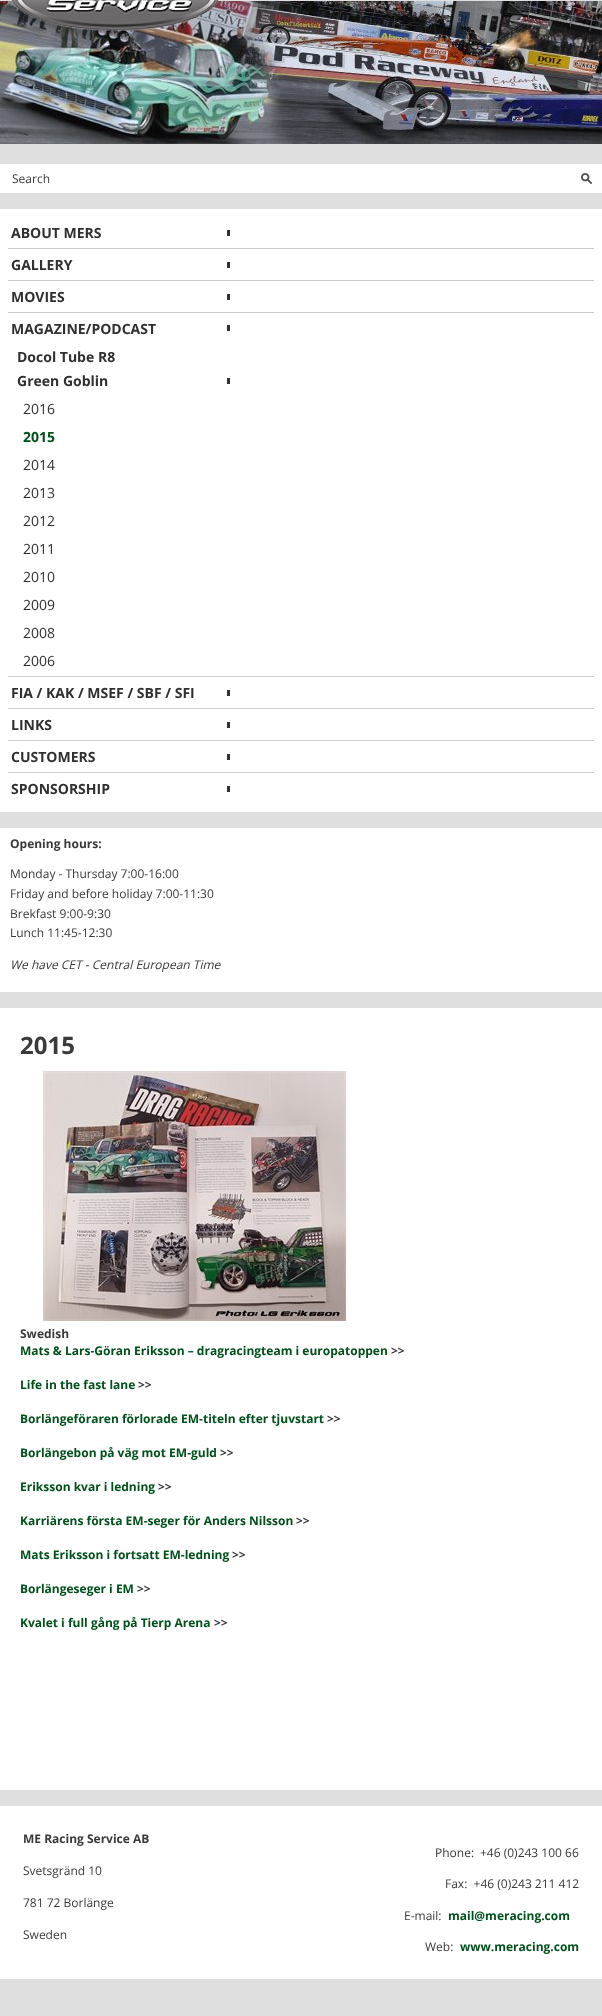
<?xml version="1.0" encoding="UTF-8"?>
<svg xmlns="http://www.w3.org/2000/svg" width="602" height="2016">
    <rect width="100%" height="100%" fill="#DFDFDF"/>
    <image x="0" y="1" width="602" height="143" href="img_02.png"/>
    <image x="11" y="0" width="208" height="31" href="img_01.png"/>
    <rect x="0" y="164" width="602" height="29" fill="#FFFFFF"/>
    <image x="581" y="173" width="11" height="11" href="img_03.png"/>
    <text x="12" y="183" font-family="Open Sans" font-size="12" fill="#3B3A3B">Search</text>
    <rect x="0" y="209" width="602" height="603" fill="#FFFFFF"/>
    <rect x="227" y="230" width="3" height="6" fill="#313131"/>
    <text x="11" y="238" font-family="Open Sans" font-size="14" font-weight="700" fill="#303030">ABOUT MERS</text>
    <rect x="227" y="262" width="3" height="6" fill="#313131"/>
    <rect x="8" y="248" width="586" height="1" fill="#CCCCCC"/>
    <text x="11" y="270" font-family="Open Sans" font-size="14" font-weight="700" fill="#303030">GALLERY</text>
    <rect x="227" y="294" width="3" height="6" fill="#313131"/>
    <rect x="8" y="280" width="586" height="1" fill="#CCCCCC"/>
    <text x="11" y="302" font-family="Open Sans" font-size="14" font-weight="700" fill="#303030">MOVIES</text>
    <rect x="227" y="325" width="3" height="6" fill="#313131"/>
    <rect x="8" y="312" width="586" height="1" fill="#CCCCCC"/>
    <text x="11" y="334" font-family="Open Sans" font-size="14" font-weight="700" fill="#303030">MAGAZINE/PODCAST</text>
    <text x="17" y="362" font-family="Open Sans" font-size="14" font-weight="700" fill="#303030">Docol Tube R8</text>
    <rect x="227" y="378" width="3" height="6" fill="#313131"/>
    <text x="17" y="386" font-family="Open Sans" font-size="14" font-weight="700" fill="#303030">Green Goblin</text>
    <text x="23" y="414" font-family="Open Sans" font-size="14" fill="#303030">2016</text>
    <text x="23" y="442" font-family="Open Sans" font-size="14" font-weight="700" fill="#00501B">2015</text>
    <text x="23" y="470" font-family="Open Sans" font-size="14" fill="#303030">2014</text>
    <text x="23" y="498" font-family="Open Sans" font-size="14" fill="#303030">2013</text>
    <text x="23" y="526" font-family="Open Sans" font-size="14" fill="#303030">2012</text>
    <text x="23" y="554" font-family="Open Sans" font-size="14" fill="#303030">2011</text>
    <text x="23" y="582" font-family="Open Sans" font-size="14" fill="#303030">2010</text>
    <text x="23" y="610" font-family="Open Sans" font-size="14" fill="#303030">2009</text>
    <text x="23" y="638" font-family="Open Sans" font-size="14" fill="#303030">2008</text>
    <text x="23" y="666" font-family="Open Sans" font-size="14" fill="#303030">2006</text>
    <rect x="227" y="690" width="3" height="6" fill="#313131"/>
    <rect x="8" y="676" width="586" height="1" fill="#CCCCCC"/>
    <text x="11" y="698" font-family="Open Sans" font-size="14" font-weight="700" fill="#303030">FIA / KAK / MSEF / SBF / SFI</text>
    <rect x="227" y="722" width="3" height="6" fill="#313131"/>
    <rect x="8" y="708" width="586" height="1" fill="#CCCCCC"/>
    <text x="11" y="730" font-family="Open Sans" font-size="14" font-weight="700" fill="#303030">LINKS</text>
    <rect x="227" y="754" width="3" height="6" fill="#313131"/>
    <rect x="8" y="740" width="586" height="1" fill="#CCCCCC"/>
    <text x="11" y="762" font-family="Open Sans" font-size="14" font-weight="700" fill="#303030">CUSTOMERS</text>
    <rect x="227" y="786" width="3" height="6" fill="#313131"/>
    <rect x="8" y="772" width="586" height="1" fill="#CCCCCC"/>
    <text x="11" y="794" font-family="Open Sans" font-size="14" font-weight="700" fill="#303030">SPONSORSHIP</text>
    <rect x="0" y="828" width="602" height="164" fill="#FFFFFF"/>
    <text x="10" y="848" font-family="Open Sans" font-size="12" font-weight="700" fill="#3B3A3B">Opening hours:</text>
    <text font-family="Open Sans" font-size="12" fill="#3B3A3B">
        <tspan x="10" y="878">Monday - Thursday 7:00-16:00</tspan>
        <tspan x="10" y="898">Friday and before holiday 7:00-11:30</tspan>
        <tspan x="10" y="918">Brekfast 9:00-9:30</tspan>
        <tspan x="10" y="937">Lunch 11:45-12:30</tspan>
    </text>
    <text x="10" y="969" font-family="Open Sans" font-size="12" font-style="italic" fill="#3B3A3B">We have CET - Central European Time</text>
    <rect x="0" y="1008" width="602" height="782" fill="#FFFFFF"/>
    <text x="20" y="1054" font-family="Open Sans" font-size="24" font-weight="700" fill="#3B3A3B">2015</text>
    <image x="41" y="1071" width="307" height="250" href="img_04.png"/>
    <text x="20" y="1338" font-family="Open Sans" font-size="12" font-weight="700" fill="#3B3A3B">Swedish</text>
    <text x="20" y="1355" font-family="Open Sans" font-size="12" font-weight="700" fill="#00501B">Mats &amp; Lars-Göran Eriksson – dragracingteam i europatoppen</text>
    <text x="391" y="1355" font-family="Open Sans" font-size="12" font-weight="700" fill="#3B3A3B">&gt;&gt;</text>
    <text x="20" y="1389" font-family="Open Sans" font-size="12" font-weight="700" fill="#00501B">Life in the fast lane</text>
    <text x="138" y="1389" font-family="Open Sans" font-size="12" font-weight="700" fill="#3B3A3B">&gt;&gt;</text>
    <text x="20" y="1423" font-family="Open Sans" font-size="12" font-weight="700" fill="#00501B">Borlängeföraren förlorade EM-titeln efter tjuvstart</text>
    <text x="327" y="1423" font-family="Open Sans" font-size="12" font-weight="700" fill="#3B3A3B">&gt;&gt;</text>
    <text x="20" y="1457" font-family="Open Sans" font-size="12" font-weight="700" fill="#00501B">Borlängebon på väg mot EM-guld</text>
    <text x="220" y="1457" font-family="Open Sans" font-size="12" font-weight="700" fill="#3B3A3B">&gt;&gt;</text>
    <text x="20" y="1491" font-family="Open Sans" font-size="12" font-weight="700" fill="#00501B">Eriksson kvar i ledning</text>
    <text x="158" y="1491" font-family="Open Sans" font-size="12" font-weight="700" fill="#3B3A3B">&gt;&gt;</text>
    <text x="20" y="1525" font-family="Open Sans" font-size="12" font-weight="700" fill="#00501B">Karriärens första EM-seger för Anders Nilsson</text>
    <text x="296" y="1525" font-family="Open Sans" font-size="12" font-weight="700" fill="#3B3A3B">&gt;&gt;</text>
    <text x="20" y="1559" font-family="Open Sans" font-size="12" font-weight="700" fill="#00501B">Mats Eriksson i fortsatt EM-ledning</text>
    <text x="232" y="1559" font-family="Open Sans" font-size="12" font-weight="700" fill="#3B3A3B">&gt;&gt;</text>
    <text x="20" y="1593" font-family="Open Sans" font-size="12" font-weight="700" fill="#00501B">Borlängeseger i EM</text>
    <text x="137" y="1593" font-family="Open Sans" font-size="12" font-weight="700" fill="#3B3A3B">&gt;&gt;</text>
    <text x="20" y="1627" font-family="Open Sans" font-size="12" font-weight="700" fill="#00501B">Kvalet i full gång på Tierp Arena</text>
    <text x="214" y="1627" font-family="Open Sans" font-size="12" font-weight="700" fill="#3B3A3B">&gt;&gt;</text>
    <rect x="0" y="1806" width="602" height="173" fill="#FFFFFF"/>
    <text x="23" y="1843" font-family="Open Sans" font-size="12" font-weight="700" fill="#3B3A3B">ME Racing Service AB</text>
    <text x="23" y="1875" font-family="Open Sans" font-size="12" fill="#3B3A3B">Svetsgränd 10</text>
    <text x="23" y="1907" font-family="Open Sans" font-size="12" fill="#3B3A3B">781 72 Borlänge</text>
    <text x="23" y="1939" font-family="Open Sans" font-size="12" fill="#3B3A3B">Sweden</text>
    <text x="435" y="1857" font-family="Open Sans" font-size="12" fill="#3B3A3B">Phone:</text>
    <text x="480" y="1857" font-family="Open Sans" font-size="12" fill="#3B3A3B">+46 (0)243 100 66</text>
    <text x="445" y="1888" font-family="Open Sans" font-size="12" fill="#3B3A3B" xml:space="preserve">Fax:  +46 (0)243 211 412</text>
    <text x="404" y="1920" font-family="Open Sans" font-size="12" fill="#3B3A3B">E-mail:</text>
    <text x="448" y="1920" font-family="Open Sans" font-size="12" font-weight="700" fill="#00501B">mail@meracing.com</text>
    <text x="425" y="1951" font-family="Open Sans" font-size="12" fill="#3B3A3B">Web:</text>
    <text x="460" y="1951" font-family="Open Sans" font-size="12" font-weight="700" fill="#00501B">www.meracing.com</text>
</svg>
